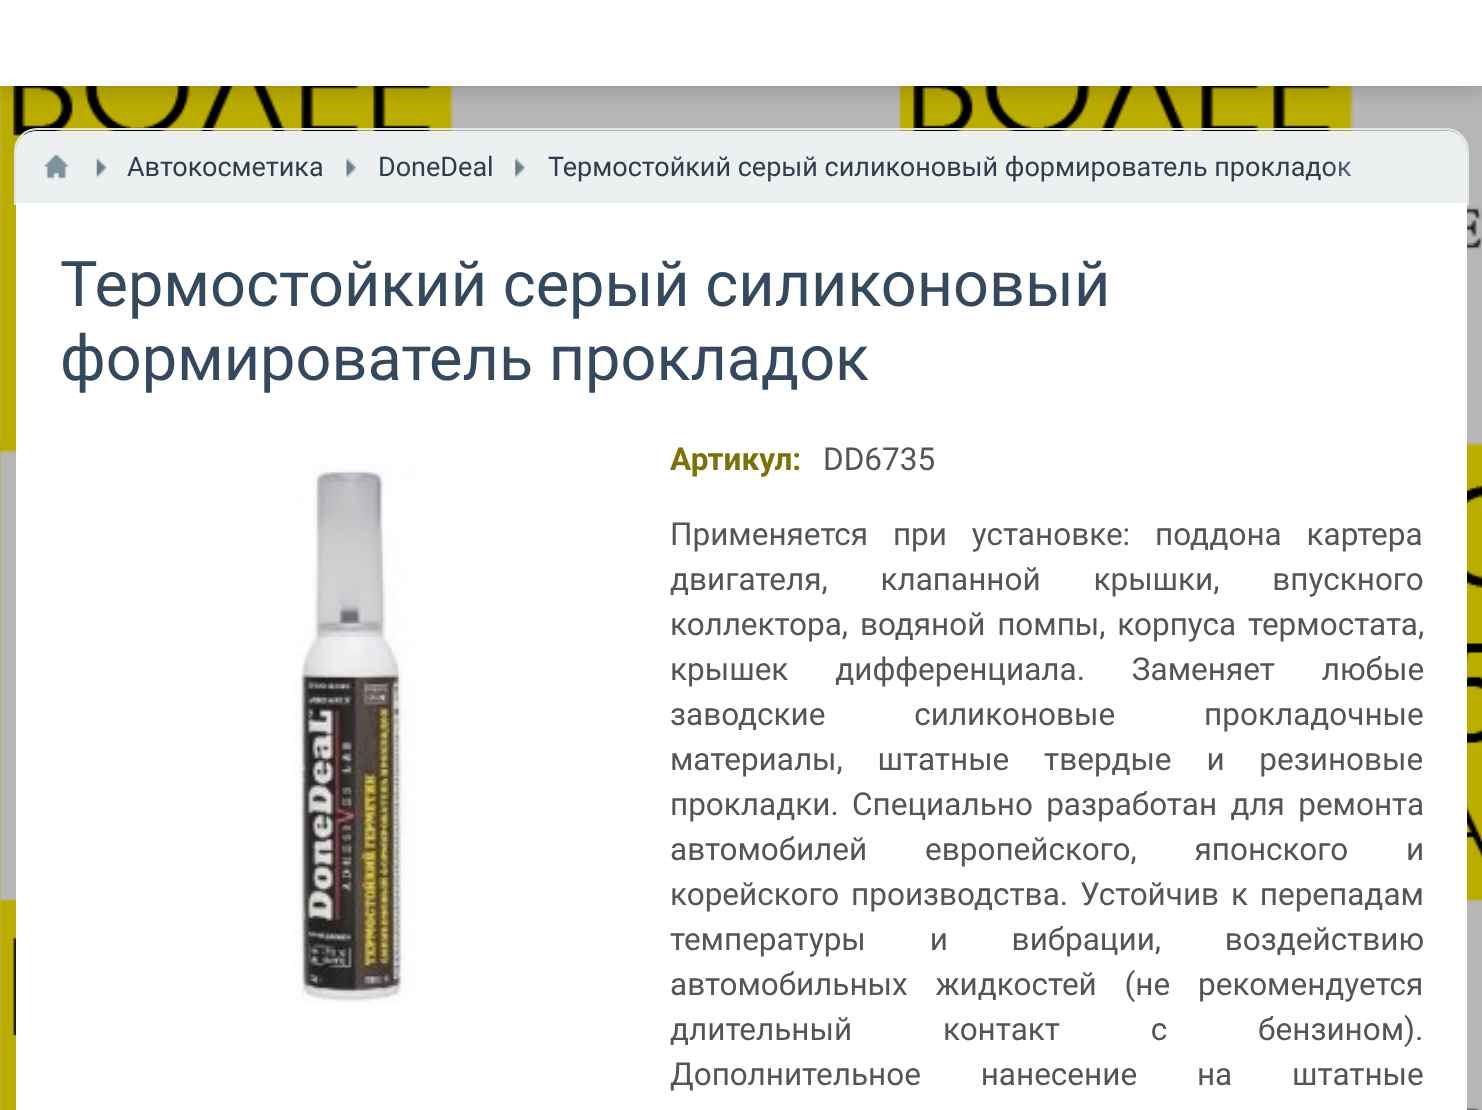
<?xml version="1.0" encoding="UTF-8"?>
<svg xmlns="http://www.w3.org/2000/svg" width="1482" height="1110">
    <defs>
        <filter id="blur1" x="-50%" y="-200%" width="200%" height="500%"><feGaussianBlur stdDeviation="12.5"/></filter>
        <linearGradient id="g1" gradientUnits="userSpaceOnUse" x1="1332" y1="167" x2="1445" y2="167"><stop offset="0" stop-color="#ECF0F1" stop-opacity="0.1"/><stop offset="1" stop-color="#ECF0F1"/></linearGradient>
    </defs>
    <rect width="100%" height="100%" fill="#FFFFFF"/>
    <image x="0" y="86" width="1482" height="1024" href="img_01.png"/>
    <rect x="-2" y="-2" width="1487" height="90" fill="#000000" fill-opacity="0.21" filter="url(#blur1)"/>
    <rect x="0" y="0" width="1482" height="86" fill="#FFFFFF"/>
    <path d="M 37 129 H 1446 C 1458 129 1468 139 1468 151 V 204 H 15 V 151 C 15 139 25 129 37 129 Z" fill="none" stroke="#E3E4E8" stroke-width="2"/>
    <path d="M 36 131 H 1447 C 1458 131 1467 140 1467 151 V 203 H 16 V 151 C 16 140 25 131 36 131 Z" fill="#ECF0F1"/>
    <image x="44" y="154" width="25" height="25" href="img_02.png"/>
    <image x="96" y="157" width="10" height="21" href="img_03.png"/>
    <text x="127" y="176" font-family="Roboto" font-size="27" fill="#2C3E50">Автокосметика</text>
    <image x="346" y="157" width="10" height="21" href="img_04.png"/>
    <text x="378" y="176" font-family="Roboto" font-size="27" fill="#2C3E50">DoneDeal</text>
    <image x="515" y="157" width="10" height="21" href="img_05.png"/>
    <text x="548" y="176" font-family="Roboto" font-size="27" fill="#2C3E50">Термостойкий серый силиконовый формирователь прокладок</text>
    <rect x="1332" y="161" width="19" height="15" fill="url(#g1)"/>
    <rect x="16" y="203" width="1451" height="907" fill="#FFFFFF"/>
    <text font-family="Roboto" font-size="63" fill="#34495E">
        <tspan x="60" y="306">Термостойкий серый силиконовый</tspan>
        <tspan x="60" y="380">формирователь прокладок</tspan>
    </text>
    <image x="294" y="463" width="127" height="542" href="img_06.png"/>
    <text x="670" y="470" font-family="Roboto" font-size="31.5" font-weight="700" fill="#7B7209">Артикул:</text>
    <text x="823" y="470" font-family="Roboto" font-size="31.5" fill="#555555">DD6735</text>
    <text font-family="Roboto" font-size="31.5" fill="#555555">
        <tspan x="670" y="545" word-spacing="17">Применяется при установке: поддона картера</tspan>
        <tspan x="670" y="590" word-spacing="45">двигателя, клапанной крышки, впускного</tspan>
        <tspan x="670" y="635" word-spacing="4">коллектора, водяной помпы, корпуса термостата,</tspan>
        <tspan x="670" y="680" word-spacing="39">крышек дифференциала. Заменяет любые</tspan>
        <tspan x="670" y="725" word-spacing="81">заводские силиконовые прокладочные</tspan>
        <tspan x="670" y="770" word-spacing="27">материалы, штатные твердые и резиновые</tspan>
        <tspan x="670" y="815" word-spacing="5.5">прокладки. Специально разработан для ремонта</tspan>
        <tspan x="670" y="860" word-spacing="50">автомобилей европейского, японского и</tspan>
        <tspan x="670" y="905" word-spacing="4">корейского производства. Устойчив к перепадам</tspan>
        <tspan x="670" y="950" word-spacing="56">температуры и вибрации, воздействию</tspan>
        <tspan x="670" y="995" word-spacing="20">автомобильных жидкостей (не рекомендуется</tspan>
        <tspan x="670" y="1040" word-spacing="83">длительный контакт с бензином).</tspan>
        <tspan x="670" y="1085" word-spacing="52">Дополнительное нанесение на штатные</tspan>
    </text>
</svg>
